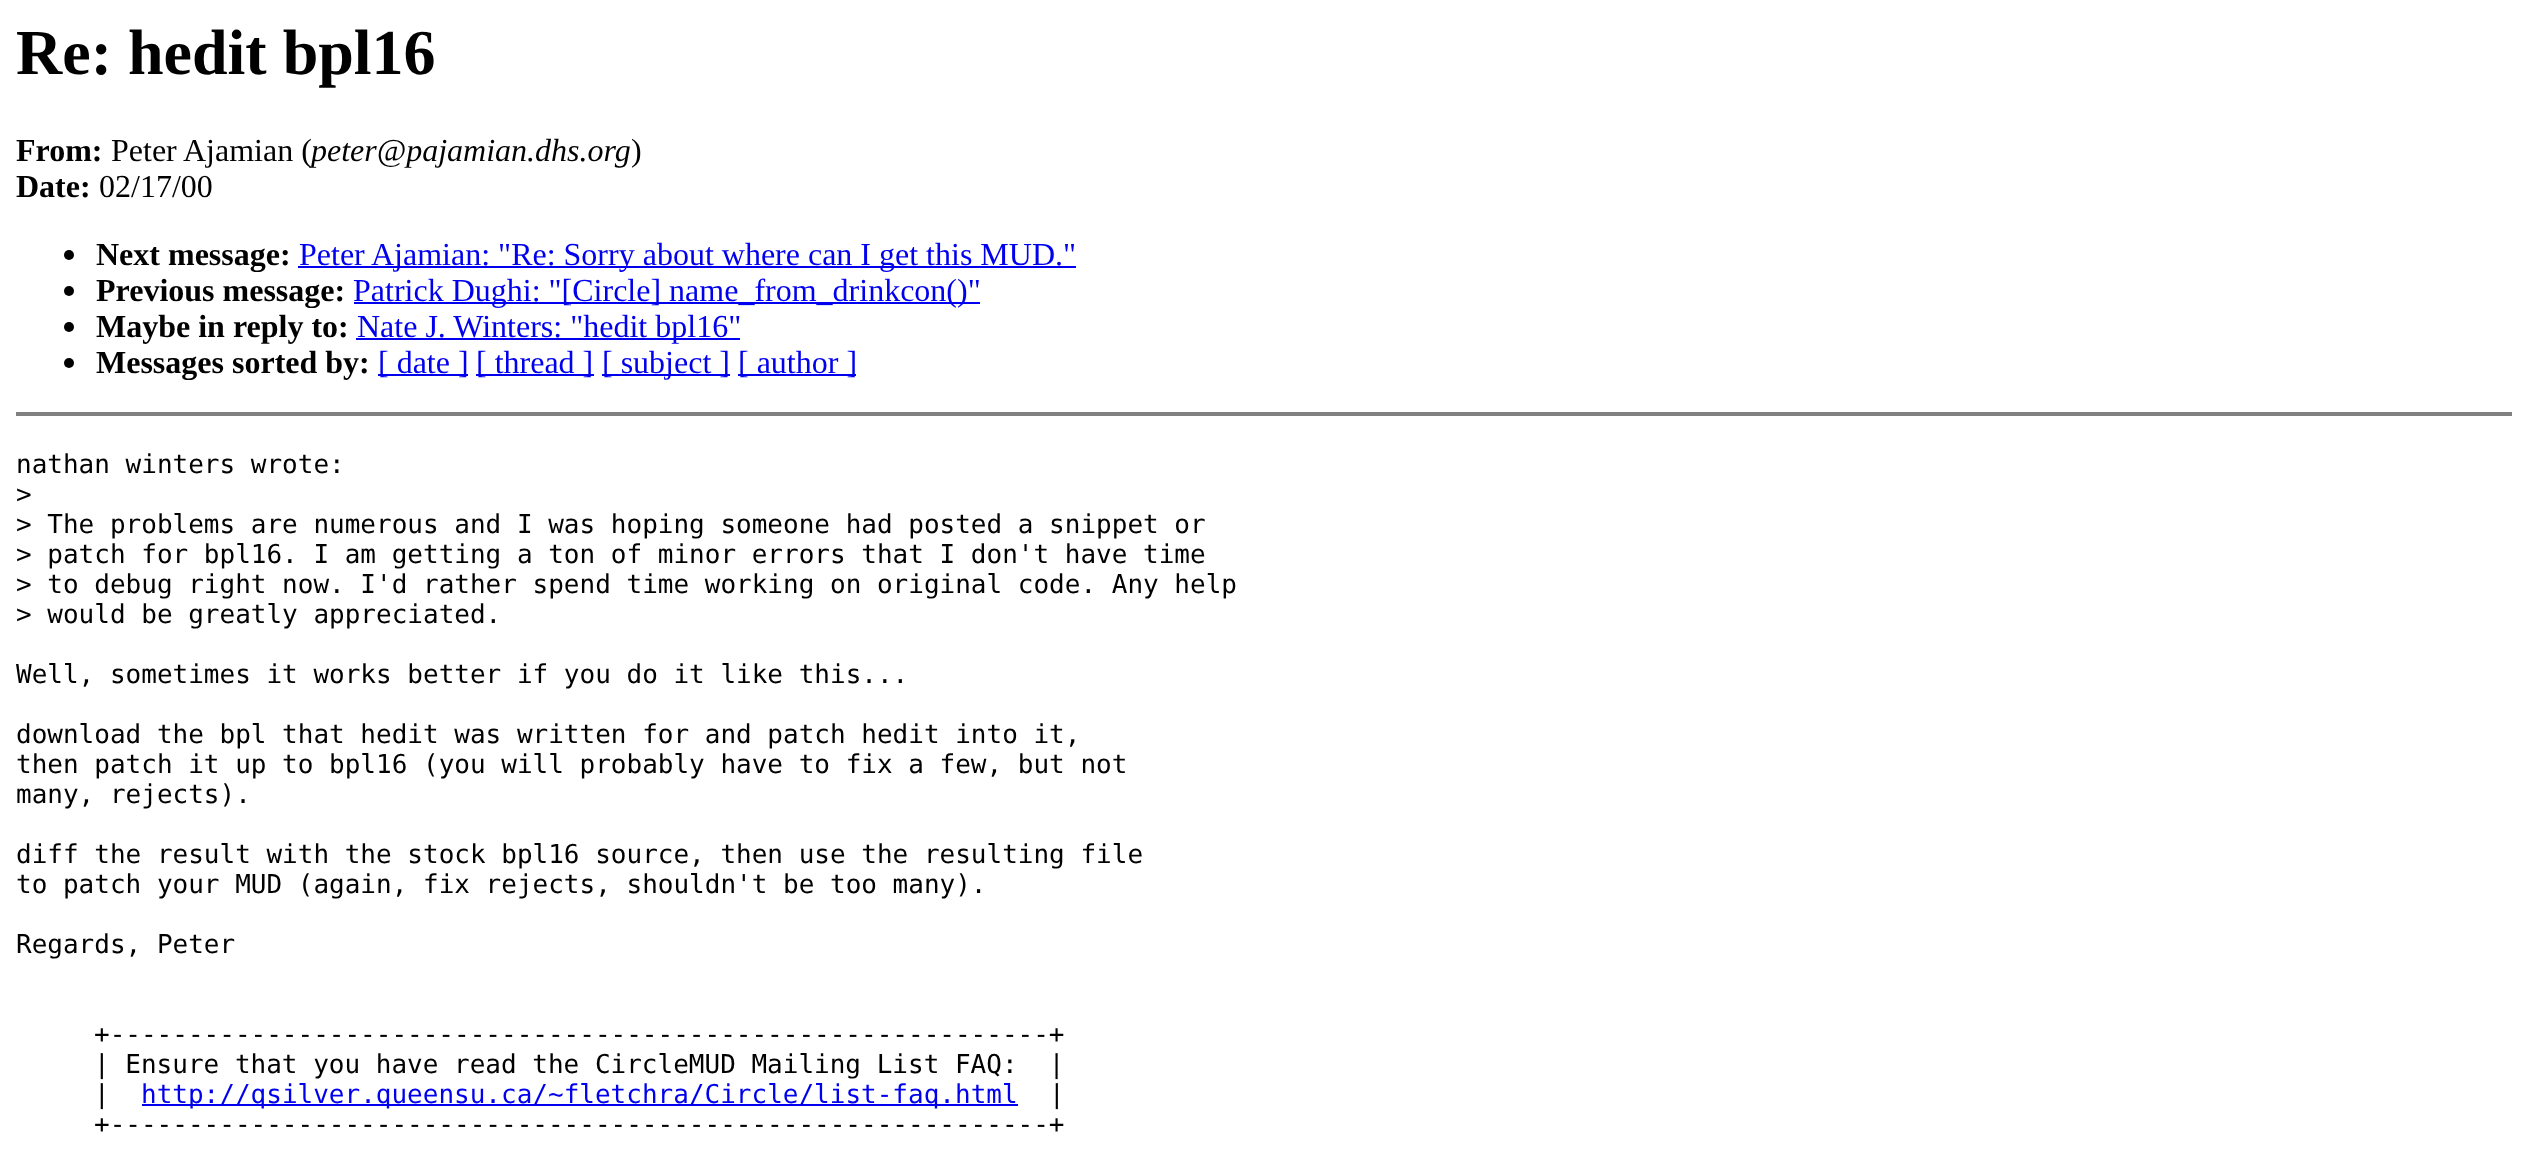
<?xml version="1.0" encoding="UTF-8"?>
<svg xmlns="http://www.w3.org/2000/svg" width="2527" height="1149">
    <rect width="100%" height="100%" fill="#FFFFFF"/>
    <text x="16" y="74" font-family="Liberation Serif" font-size="64" font-weight="700" fill="#000000">Re: hedit bpl16</text>
    <text x="16" y="161" font-family="Liberation Serif" font-size="32" font-weight="700" fill="#000000">From:</text>
    <text x="111" y="161" font-family="Liberation Serif" font-size="32" fill="#000000">Peter Ajamian (</text>
    <text x="311" y="161" font-family="Liberation Serif" font-size="32" font-style="italic" fill="#000000">peter@pajamian.dhs.org</text>
    <text x="631" y="161" font-family="Liberation Serif" font-size="32" fill="#000000">)</text>
    <text x="16" y="197" font-family="Liberation Serif" font-size="32" font-weight="700" fill="#000000">Date:</text>
    <text x="99" y="197" font-family="Liberation Serif" font-size="32" fill="#000000">02/17/00</text>
    <circle cx="69" cy="255" r="5" fill="#000000"/>
    <text x="96" y="265" font-family="Liberation Serif" font-size="32" font-weight="700" fill="#000000">Next message:</text>
    <rect x="298" y="266" width="778" height="2" fill="#0000EE"/>
    <text x="299" y="265" font-family="Liberation Serif" font-size="32" fill="#0000EE">Peter Ajamian: "Re: Sorry about where can I get this MUD."</text>
    <circle cx="69" cy="291" r="5" fill="#000000"/>
    <text x="96" y="301" font-family="Liberation Serif" font-size="32" font-weight="700" fill="#000000">Previous message:</text>
    <rect x="354" y="302" width="626" height="2" fill="#0000EE"/>
    <text x="353" y="301" font-family="Liberation Serif" font-size="32" fill="#0000EE">Patrick Dughi: "[Circle] name_from_drinkcon()"</text>
    <circle cx="69" cy="327" r="5" fill="#000000"/>
    <text x="96" y="337" font-family="Liberation Serif" font-size="32" font-weight="700" fill="#000000">Maybe in reply to:</text>
    <rect x="356" y="338" width="384" height="2" fill="#0000EE"/>
    <text x="357" y="337" font-family="Liberation Serif" font-size="32" fill="#0000EE">Nate J. Winters: "hedit bpl16"</text>
    <circle cx="69" cy="363" r="5" fill="#000000"/>
    <text x="96" y="373" font-family="Liberation Serif" font-size="32" font-weight="700" fill="#000000">Messages sorted by:</text>
    <rect x="378" y="374" width="90" height="2" fill="#0000EE"/>
    <text x="378" y="373" font-family="Liberation Serif" font-size="32" fill="#0000EE">[ date ]</text>
    <rect x="476" y="374" width="118" height="2" fill="#0000EE"/>
    <text x="476" y="373" font-family="Liberation Serif" font-size="32" fill="#0000EE">[ thread ]</text>
    <rect x="602" y="374" width="128" height="2" fill="#0000EE"/>
    <text x="602" y="373" font-family="Liberation Serif" font-size="32" fill="#0000EE">[ subject ]</text>
    <rect x="738" y="374" width="118" height="2" fill="#0000EE"/>
    <text x="738" y="373" font-family="Liberation Serif" font-size="32" fill="#0000EE">[ author ]</text>
    <rect x="16" y="412" width="2496" height="4" fill="#808080"/>
    <text font-family="DejaVu Sans Mono" font-size="26" fill="#000000">
        <tspan x="16" y="473">nathan winters wrote:</tspan>
        <tspan x="16" y="503">&gt;</tspan>
        <tspan x="16" y="533">&gt; The problems are numerous and I was hoping someone had posted a snippet or</tspan>
        <tspan x="16" y="563">&gt; patch for bpl16. I am getting a ton of minor errors that I don't have time</tspan>
        <tspan x="16" y="593">&gt; to debug right now. I'd rather spend time working on original code. Any help</tspan>
        <tspan x="16" y="623">&gt; would be greatly appreciated.</tspan>
    </text>
    <text x="16" y="683" font-family="DejaVu Sans Mono" font-size="26" fill="#000000">Well, sometimes it works better if you do it like this...</text>
    <text font-family="DejaVu Sans Mono" font-size="26" fill="#000000">
        <tspan x="16" y="743">download the bpl that hedit was written for and patch hedit into it,</tspan>
        <tspan x="16" y="773">then patch it up to bpl16 (you will probably have to fix a few, but not</tspan>
        <tspan x="16" y="803">many, rejects).</tspan>
    </text>
    <text font-family="DejaVu Sans Mono" font-size="26" fill="#000000">
        <tspan x="16" y="863">diff the result with the stock bpl16 source, then use the resulting file</tspan>
        <tspan x="16" y="893">to patch your MUD (again, fix rejects, shouldn't be too many).</tspan>
    </text>
    <text x="16" y="953" font-family="DejaVu Sans Mono" font-size="26" fill="#000000">Regards, Peter</text>
    <text font-family="DejaVu Sans Mono" font-size="26" fill="#000000" xml:space="preserve"><tspan x="94" y="1043">+------------------------------------------------------------+</tspan><tspan x="94" y="1073">| Ensure that you have read the CircleMUD Mailing List FAQ:  |</tspan><tspan x="94" y="1103">|</tspan></text>
    <rect x="142" y="1104" width="876" height="2" fill="#0000EE"/>
    <text x="141" y="1103" font-family="DejaVu Sans Mono" font-size="26" fill="#0000EE">http://qsilver.queensu.ca/~fletchra/Circle/list-faq.html</text>
    <text x="1049" y="1103" font-family="DejaVu Sans Mono" font-size="26" fill="#000000">|</text>
    <text x="94" y="1133" font-family="DejaVu Sans Mono" font-size="26" fill="#000000">+------------------------------------------------------------+</text>
</svg>
